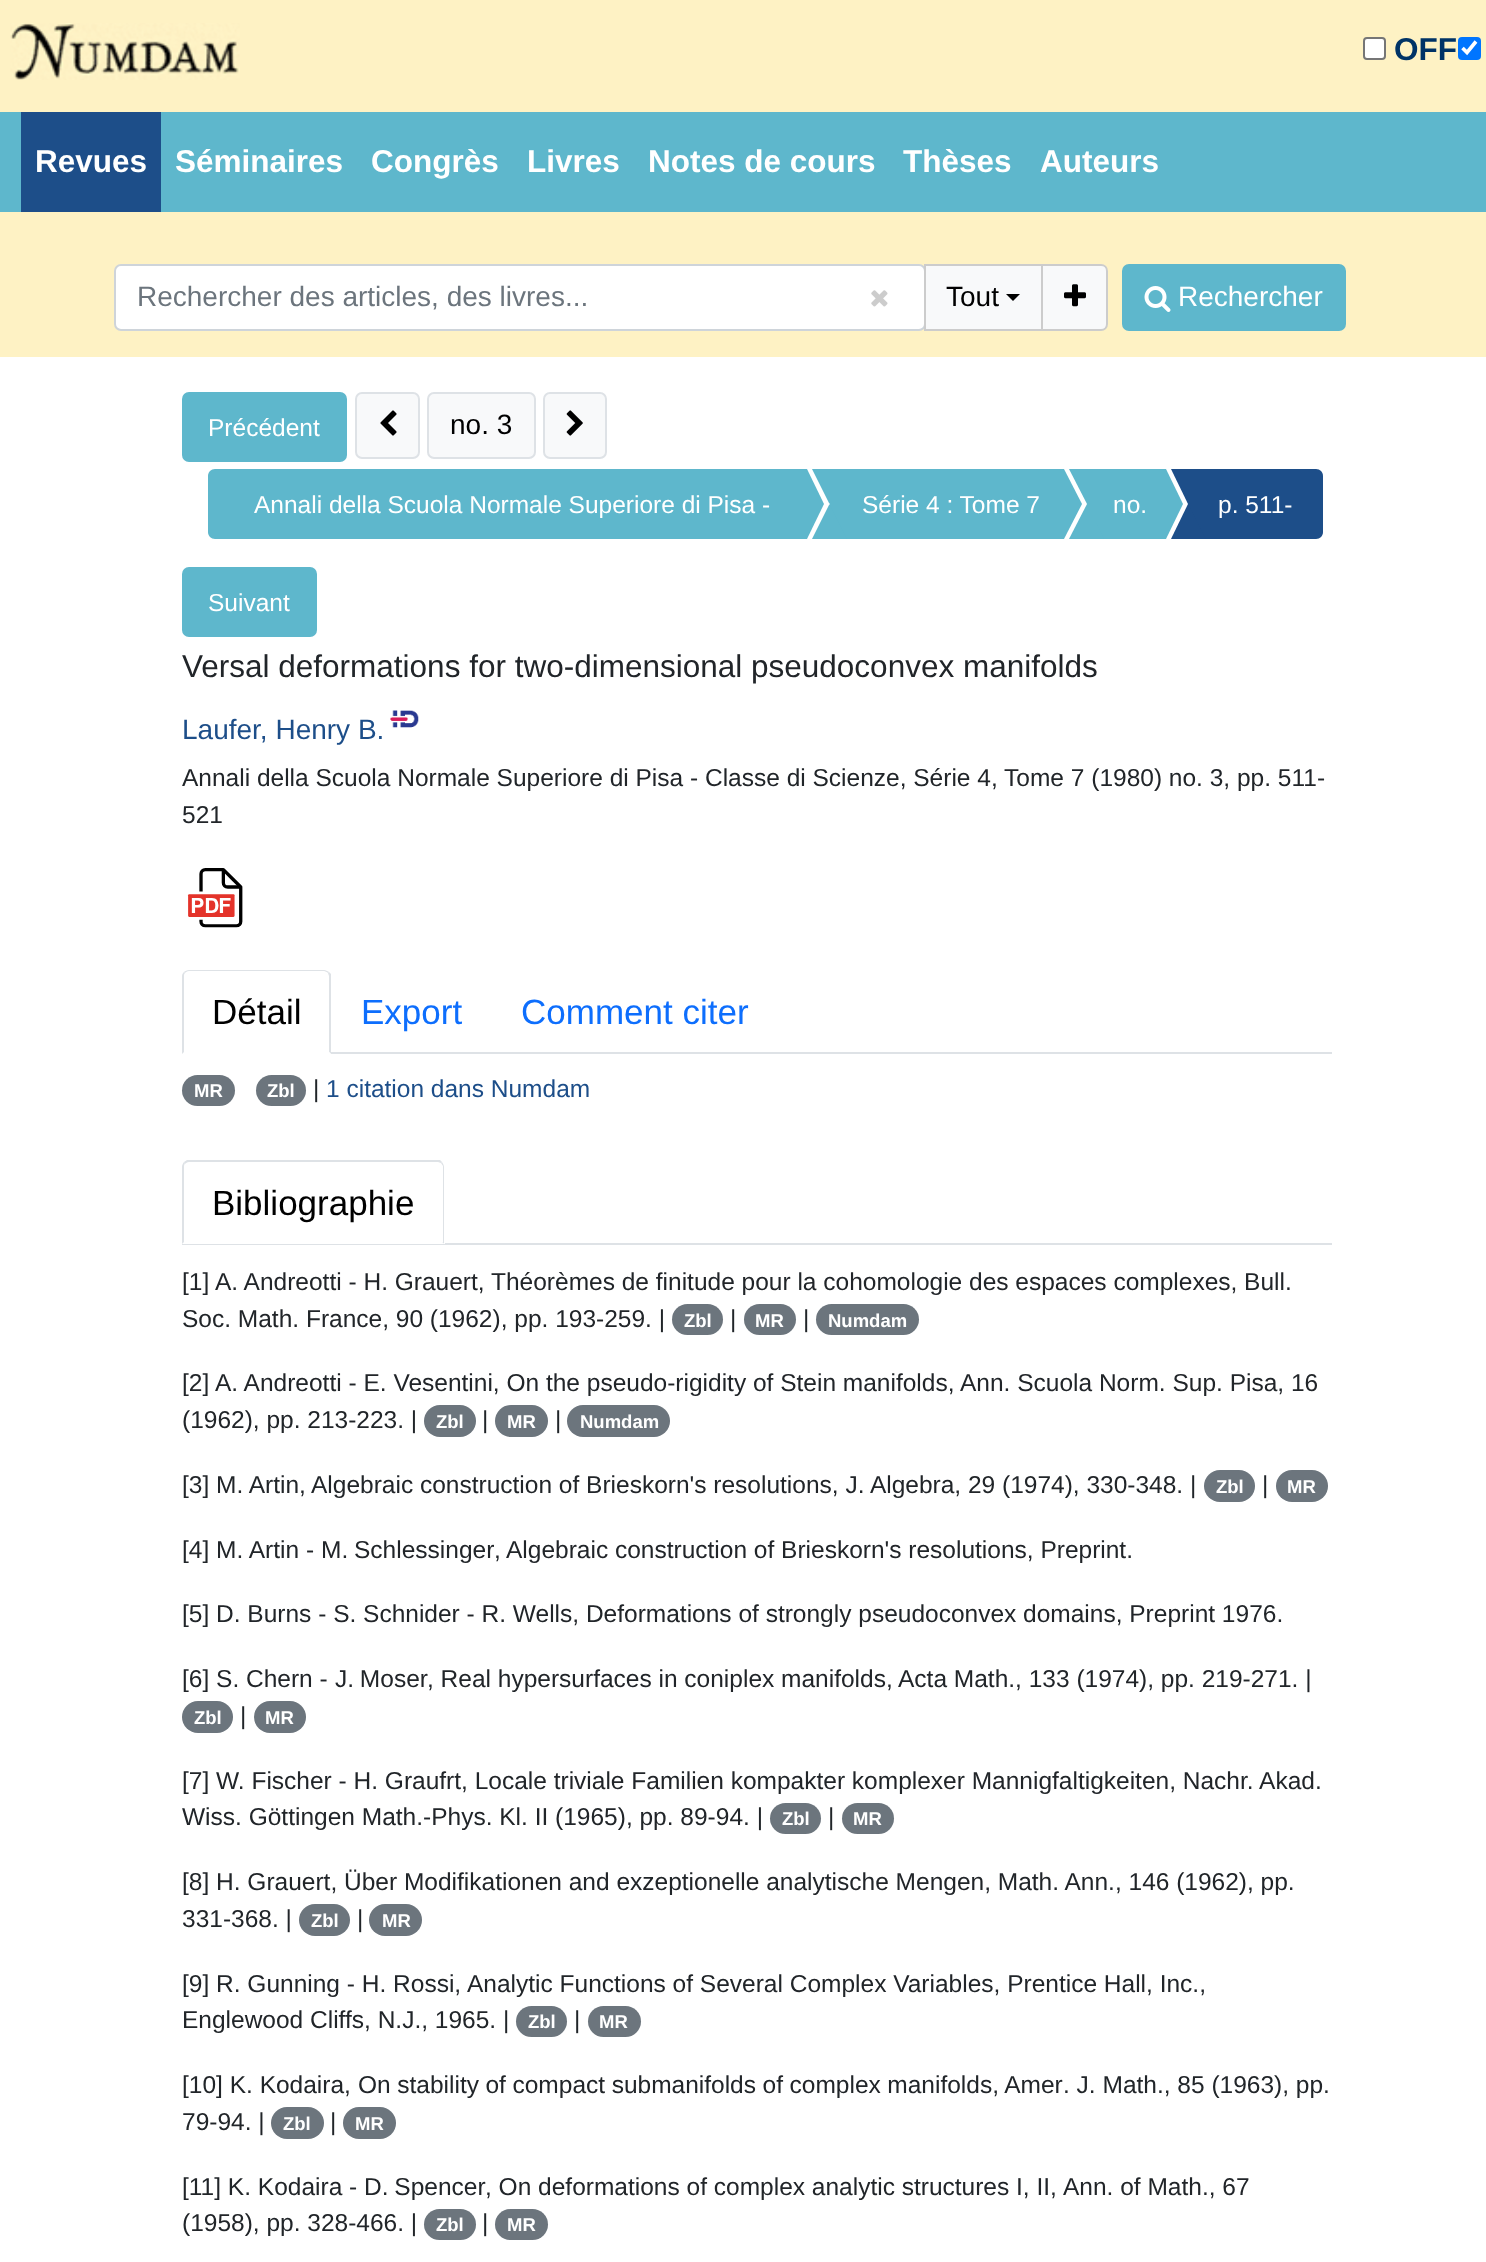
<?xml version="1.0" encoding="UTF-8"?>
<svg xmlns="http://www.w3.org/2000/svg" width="1486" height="2262">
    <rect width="100%" height="100%" fill="#FFFFFF"/>
    <rect x="0" y="0" width="1486" height="112" fill="#FEF2C4"/>
    <image x="10" y="23" width="230" height="57" href="img_01.png"/>
    <rect x="1364" y="38" width="21" height="21" rx="3" fill="#FFFFFF" stroke="#767676" stroke-width="2"/>
    <text x="1394" y="60" font-family="Liberation Sans" font-size="31.5" font-weight="700" fill="#003366">OFF</text>
    <rect x="1458" y="37" width="23" height="23" rx="4" fill="#0075FF"/>
    <path d="M 1462.5 48 L 1467 52.5 L 1476 41.5" fill="none" stroke="#FFFFFF" stroke-width="3.6"/>
    <rect x="0" y="112" width="1486" height="100" fill="#5EB7CC"/>
    <rect x="21" y="112" width="140" height="100" fill="#1D4E89"/>
    <text x="35" y="172" font-family="Liberation Sans" font-size="31.5" font-weight="700" fill="#FFFFFF">Revues</text>
    <text x="175" y="172" font-family="Liberation Sans" font-size="31.5" font-weight="700" fill="#FFFFFF">Séminaires</text>
    <text x="371" y="172" font-family="Liberation Sans" font-size="31.5" font-weight="700" fill="#FFFFFF">Congrès</text>
    <text x="527" y="172" font-family="Liberation Sans" font-size="31.5" font-weight="700" fill="#FFFFFF">Livres</text>
    <text x="648" y="172" font-family="Liberation Sans" font-size="31.5" font-weight="700" fill="#FFFFFF">Notes de cours</text>
    <text x="903" y="172" font-family="Liberation Sans" font-size="31.5" font-weight="700" fill="#FFFFFF">Thèses</text>
    <text x="1040" y="172" font-family="Liberation Sans" font-size="31.5" font-weight="700" fill="#FFFFFF">Auteurs</text>
    <rect x="0" y="212" width="1486" height="145" fill="#FEF2C4"/>
    <rect x="115" y="265" width="810" height="65" rx="6" fill="#FFFFFF" stroke="#CED4DA" stroke-width="2"/>
    <text x="137" y="306" font-family="Liberation Sans" font-size="28" fill="#6C757D">Rechercher des articles, des livres...</text>
    <image x="871" y="290" width="17" height="17" href="img_02.png"/>
    <rect x="925" y="265" width="117" height="65" fill="#F8F9FA" stroke="#CCCCCC" stroke-width="2"/>
    <text x="946" y="306" font-family="Liberation Sans" font-size="28" fill="#000000">Tout</text>
    <path d="M 1006 294 H 1020 L 1013 301 Z" fill="#000000"/>
    <path d="M 1042 265 H 1101 C 1104.5 265 1107 267.5 1107 271 V 324 C 1107 327.5 1104.5 330 1101 330 H 1042 Z" fill="#F8F9FA" stroke="#CCCCCC" stroke-width="2"/>
    <image x="1064" y="284" width="22" height="23" href="img_03.png"/>
    <rect x="1123" y="265" width="222" height="65" rx="6" fill="#5EB7CC" stroke="#5EB7CC" stroke-width="2"/>
    <image x="1144" y="286" width="27" height="26" href="img_04.png"/>
    <text x="1178" y="306" font-family="Liberation Sans" font-size="28" fill="#FFFFFF">Rechercher</text>
    <rect x="356" y="393" width="63" height="65" rx="6" fill="#F8F9FA" stroke="#DEE2E6" stroke-width="2"/>
    <image x="380" y="410" width="17" height="26" href="img_05.png"/>
    <rect x="428" y="393" width="107" height="65" rx="6" fill="#F8F9FA" stroke="#DEE2E6" stroke-width="2"/>
    <text x="450" y="434" font-family="Liberation Sans" font-size="28" fill="#000000">no. 3</text>
    <rect x="544" y="393" width="62" height="65" rx="6" fill="#F8F9FA" stroke="#DEE2E6" stroke-width="2"/>
    <image x="566" y="410" width="17" height="26" href="img_06.png"/>
    <rect x="182" y="392" width="165" height="70" rx="7" fill="#5EB7CC"/>
    <text x="208" y="436" font-family="Liberation Sans" font-size="24.5" fill="#FFFFFF">Précédent</text>
    <path d="M 215 469 H 807 V 539 H 215 C 211 539 208 536 208 532 V 476 C 208 472 211 469 215 469 Z" fill="#5EB7CC"/>
    <text x="254" y="513" font-family="Liberation Sans" font-size="24.5" fill="#FFFFFF">Annali della Scuola Normale Superiore di Pisa -</text>
    <path d="M 807 539 V 469 L 824 504 Z" fill="#5EB7CC"/>
    <rect x="847" y="469" width="217" height="70" fill="#5EB7CC"/>
    <path d="M 812 469 H 847 L 829.5 504 Z" fill="#5EB7CC"/>
    <rect x="830" y="469" width="17" height="70" fill="#5EB7CC"/>
    <path d="M 847 539 H 812 L 829.5 504 Z" fill="#5EB7CC"/>
    <text x="862" y="513" font-family="Liberation Sans" font-size="24.5" fill="#FFFFFF">Série 4 : Tome 7</text>
    <path d="M 1064 539 V 469 L 1082 504 Z" fill="#5EB7CC"/>
    <rect x="1104" y="469" width="62" height="70" fill="#5EB7CC"/>
    <path d="M 1069 469 H 1104 L 1087 504 Z" fill="#5EB7CC"/>
    <rect x="1087" y="469" width="17" height="70" fill="#5EB7CC"/>
    <path d="M 1104 539 H 1069 L 1087 504 Z" fill="#5EB7CC"/>
    <text x="1113" y="513" font-family="Liberation Sans" font-size="24.5" fill="#FFFFFF">no.</text>
    <path d="M 1166 539 V 469 L 1183 504 Z" fill="#5EB7CC"/>
    <path d="M 1206 469 H 1316 C 1320 469 1323 472 1323 476 V 532 C 1323 536 1320 539 1316 539 H 1206 Z" fill="#1D4E89"/>
    <path d="M 1171 469 H 1206 L 1188 504 Z" fill="#1D4E89"/>
    <rect x="1188" y="469" width="18" height="70" fill="#1D4E89"/>
    <path d="M 1206 539 H 1171 L 1188 504 Z" fill="#1D4E89"/>
    <text x="1218" y="513" font-family="Liberation Sans" font-size="24.5" fill="#FFFFFF">p. 511-</text>
    <rect x="182" y="567" width="135" height="70" rx="7" fill="#5EB7CC"/>
    <text x="208" y="611" font-family="Liberation Sans" font-size="24.5" fill="#FFFFFF">Suivant</text>
    <text x="182" y="677" font-family="Liberation Sans" font-size="31.5" fill="#212529">Versal deformations for two-dimensional pseudoconvex manifolds</text>
    <text x="182" y="739" font-family="Liberation Sans" font-size="28" fill="#1D4E89">Laufer, Henry B.</text>
    <image x="390" y="710" width="29" height="18" href="img_07.png"/>
    <text font-family="Liberation Sans" font-size="24.5" fill="#212529">
        <tspan x="182" y="786">Annali della Scuola Normale Superiore di Pisa - Classe di Scienze, Série 4, Tome 7 (1980) no. 3, pp. 511-</tspan>
        <tspan x="182" y="823">521</tspan>
    </text>
    <image x="187" y="868" width="56" height="60" href="img_08.png"/>
    <rect x="331" y="1052" width="1001" height="2" fill="#DEE2E6"/>
    <path d="M 189 970 C 187 970 185 971 184 972 L 185 973 C 186 972 187 971 189 971 H 324 C 325 971 327 972 328 973 L 329 972 C 327 971 326 970 324 970 Z" fill="#DEE2E6"/>
    <path d="M 329 972 L 331 974 V 1054 L 329 1052 V 976 L 328 973 Z" fill="#DEE2E6"/>
    <path d="M 331 1054 L 329 1052 H 184 L 182 1054 Z" fill="#FFFFFF"/>
    <path d="M 182 1054 L 184 1052 V 976 C 184 975 184 974 185 973 L 184 972 C 183 973 182 974 182 976 Z" fill="#DEE2E6"/>
    <text x="212" y="1024" font-family="Liberation Sans" font-size="35" fill="#000000">Détail</text>
    <text x="361" y="1024" font-family="Liberation Sans" font-size="35" fill="#0D6EFD">Export</text>
    <text x="521" y="1024" font-family="Liberation Sans" font-size="35" fill="#0D6EFD">Comment citer</text>
    <rect x="182" y="1075" width="53" height="31" rx="15.5" fill="#6C757D"/>
    <text x="194" y="1097" font-family="Liberation Sans" font-size="18.5" font-weight="700" fill="#FFFFFF">MR</text>
    <rect x="256" y="1075" width="50" height="31" rx="15.5" fill="#6C757D"/>
    <text x="267" y="1097" font-family="Liberation Sans" font-size="18.5" font-weight="700" fill="#FFFFFF">Zbl</text>
    <text x="313" y="1097" font-family="Liberation Sans" font-size="24.5" fill="#212529">|</text>
    <text x="326" y="1097" font-family="Liberation Sans" font-size="24.5" fill="#1D4E89">1 citation dans Numdam</text>
    <rect x="182" y="1243" width="1150" height="2" fill="#DEE2E6"/>
    <path d="M 189 1160 H 438 C 442 1160 445 1163 445 1167 V 1244 H 182 V 1167 C 182 1163 185 1160 189 1160 Z" fill="#FFFFFF"/>
    <path d="M 189 1162 C 187 1162 186 1163 185 1164 L 184 1162 L 187 1160 H 440 L 442 1162 L 441 1163 L 438 1162 Z" fill="#DEE2E6"/>
    <path d="M 442 1162 C 443 1164 444 1165 444 1167 V 1244 L 442 1242 H 443 V 1166 L 441 1163 Z" fill="#DEE2E6"/>
    <path d="M 444 1244 H 182 L 184 1242 H 442 Z" fill="#FFFFFF"/>
    <path d="M 182 1167 V 1244 L 184 1242 V 1167 C 184 1166 184 1164 185 1164 L 184 1162 C 183 1163 182 1165 182 1167 Z" fill="#DEE2E6"/>
    <text x="212" y="1215" font-family="Liberation Sans" font-size="35" fill="#000000">Bibliographie</text>
    <text x="182" y="1290" font-family="Liberation Sans" font-size="24.5" fill="#212529">[1]</text>
    <text x="215" y="1290" font-family="Liberation Sans" font-size="24.5" fill="#212529">A. Andreotti - H. Grauert,</text>
    <text x="491" y="1290" font-family="Liberation Sans" font-size="24.5" fill="#212529">Théorèmes de finitude pour la cohomologie des espaces complexes, Bull.</text>
    <text x="182" y="1327" font-family="Liberation Sans" font-size="24.5" fill="#212529">Soc. Math. France, 90 (1962), pp. 193-259. |</text>
    <rect x="672" y="1304" width="51" height="31" rx="15.5" fill="#6C757D"/>
    <text x="684" y="1327" font-family="Liberation Sans" font-size="18.5" font-weight="700" fill="#FFFFFF">Zbl</text>
    <text x="730" y="1327" font-family="Liberation Sans" font-size="24.5" fill="#212529">|</text>
    <rect x="744" y="1304" width="52" height="31" rx="15.5" fill="#6C757D"/>
    <text x="755" y="1327" font-family="Liberation Sans" font-size="18.5" font-weight="700" fill="#FFFFFF">MR</text>
    <text x="803" y="1327" font-family="Liberation Sans" font-size="24.5" fill="#212529">|</text>
    <rect x="816" y="1304" width="103" height="31" rx="15.5" fill="#6C757D"/>
    <text x="828" y="1327" font-family="Liberation Sans" font-size="18.5" font-weight="700" fill="#FFFFFF">Numdam</text>
    <text x="182" y="1391" font-family="Liberation Sans" font-size="24.5" fill="#212529">[2]</text>
    <text x="215" y="1391" font-family="Liberation Sans" font-size="24.5" fill="#212529">A. Andreotti - E. Vesentini, On the pseudo-rigidity of Stein manifolds,</text>
    <text x="960" y="1391" font-family="Liberation Sans" font-size="24.5" fill="#212529">Ann. Scuola Norm. Sup. Pisa, 16</text>
    <text x="182" y="1428" font-family="Liberation Sans" font-size="24.5" fill="#212529">(1962), pp. 213-223. |</text>
    <rect x="424" y="1405" width="52" height="32" rx="16" fill="#6C757D"/>
    <text x="436" y="1428" font-family="Liberation Sans" font-size="18.5" font-weight="700" fill="#FFFFFF">Zbl</text>
    <text x="482" y="1428" font-family="Liberation Sans" font-size="24.5" fill="#212529">|</text>
    <rect x="495" y="1405" width="53" height="32" rx="16" fill="#6C757D"/>
    <text x="507" y="1428" font-family="Liberation Sans" font-size="18.5" font-weight="700" fill="#FFFFFF">MR</text>
    <text x="555" y="1428" font-family="Liberation Sans" font-size="24.5" fill="#212529">|</text>
    <rect x="567" y="1405" width="103" height="32" rx="16" fill="#6C757D"/>
    <text x="580" y="1428" font-family="Liberation Sans" font-size="18.5" font-weight="700" fill="#FFFFFF">Numdam</text>
    <text x="182" y="1493" font-family="Liberation Sans" font-size="24.5" fill="#212529">[3] M. Artin,</text>
    <text x="311" y="1493" font-family="Liberation Sans" font-size="24.5" fill="#212529">Algebraic construction of Brieskorn's resolutions, J. Algebra, 29 (1974), 330-348. |</text>
    <rect x="1204" y="1470" width="51" height="32" rx="16" fill="#6C757D"/>
    <text x="1216" y="1493" font-family="Liberation Sans" font-size="18.5" font-weight="700" fill="#FFFFFF">Zbl</text>
    <text x="1262" y="1493" font-family="Liberation Sans" font-size="24.5" fill="#212529">|</text>
    <rect x="1276" y="1470" width="52" height="32" rx="16" fill="#6C757D"/>
    <text x="1287" y="1493" font-family="Liberation Sans" font-size="18.5" font-weight="700" fill="#FFFFFF">MR</text>
    <text x="182" y="1558" font-family="Liberation Sans" font-size="24.5" fill="#212529">[4] M. Artin -</text>
    <text x="321" y="1558" word-spacing="-1" font-family="Liberation Sans" font-size="24.5" fill="#212529">M. Schlessinger</text>
    <text x="494" y="1558" font-family="Liberation Sans" font-size="24.5" fill="#212529">,</text>
    <text x="506" y="1558" font-family="Liberation Sans" font-size="24.5" fill="#212529">Algebraic construction of Brieskorn's resolutions, Preprint.</text>
    <text x="182" y="1622" font-family="Liberation Sans" font-size="24.5" fill="#212529">[5] D. Burns - S. Schnider - R. Wells, Deformations of strongly pseudoconvex domains, Preprint 1976.</text>
    <text x="182" y="1687" font-family="Liberation Sans" font-size="24.5" fill="#212529">[6] S. Chern -</text>
    <text x="335" y="1687" word-spacing="-1" font-family="Liberation Sans" font-size="24.5" fill="#212529">J. Moser</text>
    <text x="427" y="1687" font-family="Liberation Sans" font-size="24.5" fill="#212529">, Real hypersurfaces in coniplex manifolds,</text>
    <text x="898" y="1687" font-family="Liberation Sans" font-size="24.5" fill="#212529">Acta Math., 133 (1974), pp. 219-271. |</text>
    <rect x="182" y="1701" width="51" height="32" rx="16" fill="#6C757D"/>
    <text x="194" y="1724" font-family="Liberation Sans" font-size="18.5" font-weight="700" fill="#FFFFFF">Zbl</text>
    <text x="240" y="1724" font-family="Liberation Sans" font-size="24.5" fill="#212529">|</text>
    <rect x="254" y="1701" width="52" height="32" rx="16" fill="#6C757D"/>
    <text x="265" y="1724" font-family="Liberation Sans" font-size="18.5" font-weight="700" fill="#FFFFFF">MR</text>
    <text font-family="Liberation Sans" font-size="24.5" fill="#212529">
        <tspan x="182" y="1789">[7] W. Fischer - H. Graufrt, Locale triviale Familien kompakter komplexer Mannigfaltigkeiten, Nachr. Akad.</tspan>
        <tspan x="182" y="1825">Wiss. Göttingen Math.-Phys. Kl. II (1965), pp. 89-94. |</tspan>
    </text>
    <rect x="770" y="1803" width="51" height="31" rx="15.5" fill="#6C757D"/>
    <text x="782" y="1825" font-family="Liberation Sans" font-size="18.5" font-weight="700" fill="#FFFFFF">Zbl</text>
    <text x="828" y="1825" font-family="Liberation Sans" font-size="24.5" fill="#212529">|</text>
    <rect x="842" y="1803" width="52" height="31" rx="15.5" fill="#6C757D"/>
    <text x="853" y="1825" font-family="Liberation Sans" font-size="18.5" font-weight="700" fill="#FFFFFF">MR</text>
    <text font-family="Liberation Sans" font-size="24.5" fill="#212529">
        <tspan x="182" y="1890">[8] H. Grauert, Über Modifikationen and exzeptionelle analytische Mengen, Math. Ann., 146 (1962), pp.</tspan>
        <tspan x="182" y="1927">331-368. |</tspan>
    </text>
    <rect x="299" y="1904" width="51" height="32" rx="16" fill="#6C757D"/>
    <text x="311" y="1927" font-family="Liberation Sans" font-size="18.5" font-weight="700" fill="#FFFFFF">Zbl</text>
    <text x="357" y="1927" font-family="Liberation Sans" font-size="24.5" fill="#212529">|</text>
    <rect x="369" y="1904" width="53" height="32" rx="16" fill="#6C757D"/>
    <text x="382" y="1927" font-family="Liberation Sans" font-size="18.5" font-weight="700" fill="#FFFFFF">MR</text>
    <text x="182" y="1992" font-family="Liberation Sans" font-size="24.5" fill="#212529">[9] R. Gunning - H. Rossi,</text>
    <text x="467" y="1992" font-family="Liberation Sans" font-size="24.5" fill="#212529">Analytic Functions of Several Complex Variables, Prentice Hall, Inc.,</text>
    <text x="182" y="2028" font-family="Liberation Sans" font-size="24.5" fill="#212529">Englewood Cliffs, N.J., 1965. |</text>
    <rect x="516" y="2006" width="51" height="31" rx="15.5" fill="#6C757D"/>
    <text x="528" y="2028" font-family="Liberation Sans" font-size="18.5" font-weight="700" fill="#FFFFFF">Zbl</text>
    <text x="574" y="2028" font-family="Liberation Sans" font-size="24.5" fill="#212529">|</text>
    <rect x="588" y="2006" width="53" height="31" rx="15.5" fill="#6C757D"/>
    <text x="599" y="2028" font-family="Liberation Sans" font-size="18.5" font-weight="700" fill="#FFFFFF">MR</text>
    <text x="182" y="2093" font-family="Liberation Sans" font-size="24.5" fill="#212529">[10] K. Kodaira,</text>
    <text x="358" y="2093" word-spacing="-0.25" font-family="Liberation Sans" font-size="24.5" fill="#212529">On stability of compact submanifolds of complex manifolds, Amer</text>
    <text x="1063" y="2093" font-family="Liberation Sans" font-size="24.5" fill="#212529">. J. Math., 85 (1963), pp.</text>
    <text x="182" y="2130" font-family="Liberation Sans" font-size="24.5" fill="#212529">79-94. |</text>
    <rect x="271" y="2107" width="53" height="32" rx="16" fill="#6C757D"/>
    <text x="283" y="2130" font-family="Liberation Sans" font-size="18.5" font-weight="700" fill="#FFFFFF">Zbl</text>
    <text x="330" y="2130" font-family="Liberation Sans" font-size="24.5" fill="#212529">|</text>
    <rect x="343" y="2107" width="53" height="32" rx="16" fill="#6C757D"/>
    <text x="355" y="2130" font-family="Liberation Sans" font-size="18.5" font-weight="700" fill="#FFFFFF">MR</text>
    <text x="182" y="2195" font-family="Liberation Sans" font-size="24.5" fill="#212529">[11] K. Kodaira -</text>
    <text x="364" y="2195" word-spacing="-1" font-family="Liberation Sans" font-size="24.5" fill="#212529">D. Spencer</text>
    <text x="485" y="2195" font-family="Liberation Sans" font-size="24.5" fill="#212529">, On deformations of complex analytic structures I, II,</text>
    <text x="1063" y="2195" font-family="Liberation Sans" font-size="24.5" fill="#212529">Ann. of Math., 67</text>
    <text x="182" y="2231" font-family="Liberation Sans" font-size="24.5" fill="#212529">(1958), pp. 328-466. |</text>
    <rect x="424" y="2209" width="52" height="31" rx="15.5" fill="#6C757D"/>
    <text x="436" y="2231" font-family="Liberation Sans" font-size="18.5" font-weight="700" fill="#FFFFFF">Zbl</text>
    <text x="482" y="2231" font-family="Liberation Sans" font-size="24.5" fill="#212529">|</text>
    <rect x="495" y="2209" width="53" height="31" rx="15.5" fill="#6C757D"/>
    <text x="507" y="2231" font-family="Liberation Sans" font-size="18.5" font-weight="700" fill="#FFFFFF">MR</text>
</svg>
